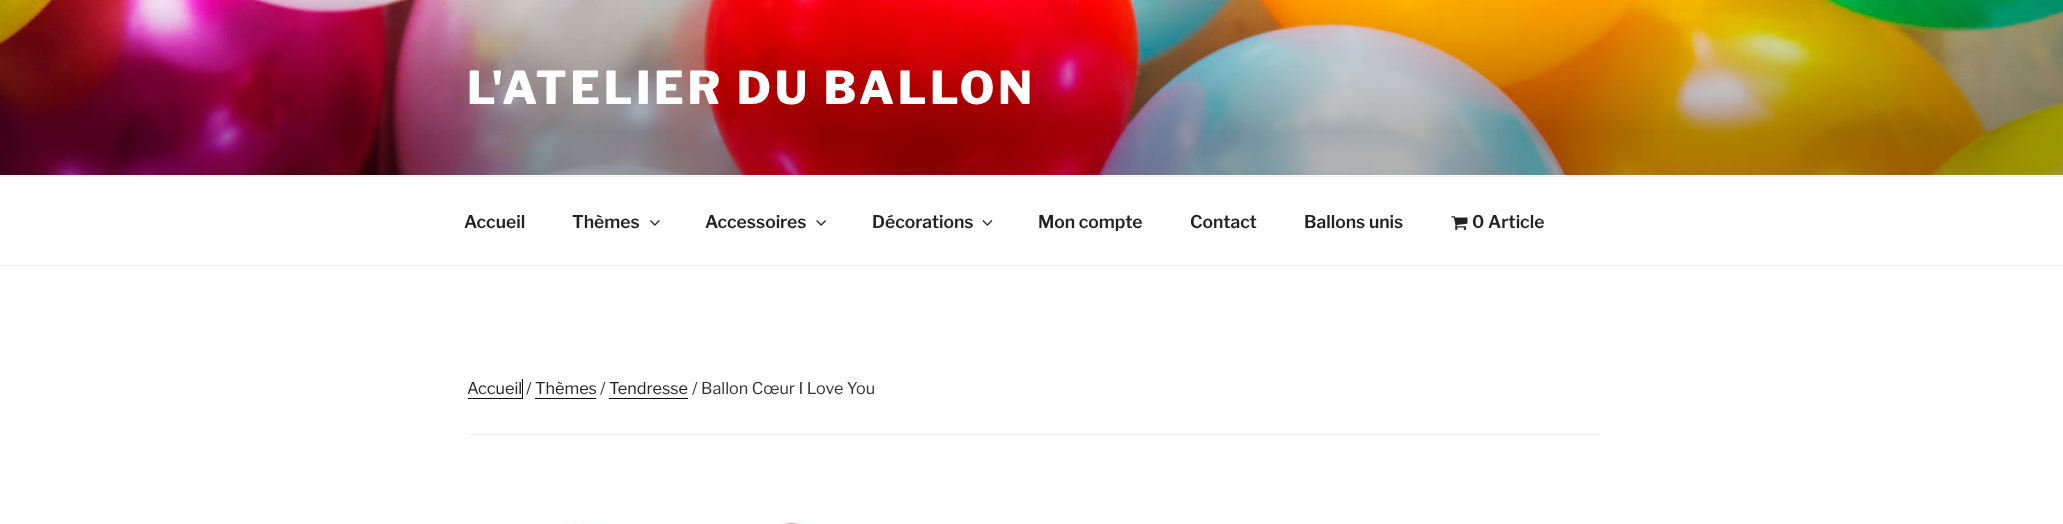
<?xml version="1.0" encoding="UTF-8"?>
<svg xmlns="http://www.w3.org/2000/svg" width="2063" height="524">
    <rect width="100%" height="100%" fill="#FFFFFF"/>
    <rect x="0" y="175" width="2063" height="1" fill="#FAFAFA"/>
    <image x="0" y="0" width="2063" height="175" href="img_01.png"/>
    <text x="467" y="104" font-family="Libre Franklin" font-size="45" font-weight="800" letter-spacing="3.6" fill="#FFFFFF">L'ATELIER DU BALLON</text>
    <rect x="0" y="176" width="2063" height="1" fill="#EEEEEE"/>
    <rect x="0" y="265" width="2063" height="1" fill="#EEEEEE"/>
    <text x="464" y="228" font-family="Libre Franklin" font-size="17.5" font-weight="600" fill="#222222">Accueil</text>
    <text x="572" y="228" font-family="Libre Franklin" font-size="17.5" font-weight="600" fill="#222222">Thèmes</text>
    <image x="650" y="220" width="10" height="6" href="img_02.png"/>
    <text x="705" y="228" font-family="Libre Franklin" font-size="17.5" font-weight="600" fill="#222222">Accessoires</text>
    <image x="816" y="220" width="10" height="6" href="img_03.png"/>
    <text x="872" y="228" font-family="Libre Franklin" font-size="17.5" font-weight="600" fill="#222222">Décorations</text>
    <image x="982" y="220" width="11" height="6" href="img_04.png"/>
    <text x="1038" y="228" font-family="Libre Franklin" font-size="17.5" font-weight="600" fill="#222222">Mon compte</text>
    <text x="1190" y="228" font-family="Libre Franklin" font-size="17.5" font-weight="600" fill="#222222">Contact</text>
    <text x="1304" y="228" font-family="Libre Franklin" font-size="17.5" font-weight="600" fill="#222222">Ballons unis</text>
    <image x="1451" y="216" width="17" height="14" href="img_05.png"/>
    <text x="1472" y="228" font-family="Libre Franklin" font-size="17.5" font-weight="600" fill="#222222">0 Article</text>
    <rect x="468" y="434" width="1130" height="1" fill="#EEEEEE"/>
    <path d="M 468 398 V 399 H 523 V 379 H 522 V 398 Z" fill="#0F0F0F"/>
    <text x="467" y="394" font-family="Libre Franklin" font-size="16.25" fill="#222222">Accueil</text>
    <text x="526" y="394" font-family="Libre Franklin" font-size="16.25" fill="#333333">/</text>
    <text x="535" y="394" font-family="Libre Franklin" font-size="16.25" fill="#222222">Thèmes</text>
    <rect x="535" y="398" width="61" height="1" fill="#0F0F0F"/>
    <text x="600" y="394" font-family="Libre Franklin" font-size="16.25" fill="#333333">/</text>
    <text x="609" y="394" font-family="Libre Franklin" font-size="16.25" fill="#222222">Tendresse</text>
    <path d="M 609 398 V 399 H 688 V 379 V 398 Z" fill="#0F0F0F"/>
    <text x="692" y="394" font-family="Libre Franklin" font-size="16.25" fill="#333333">/ Ballon Cœur I Love You</text>
    <image x="564" y="517" width="253" height="7" href="img_06.png"/>
</svg>
